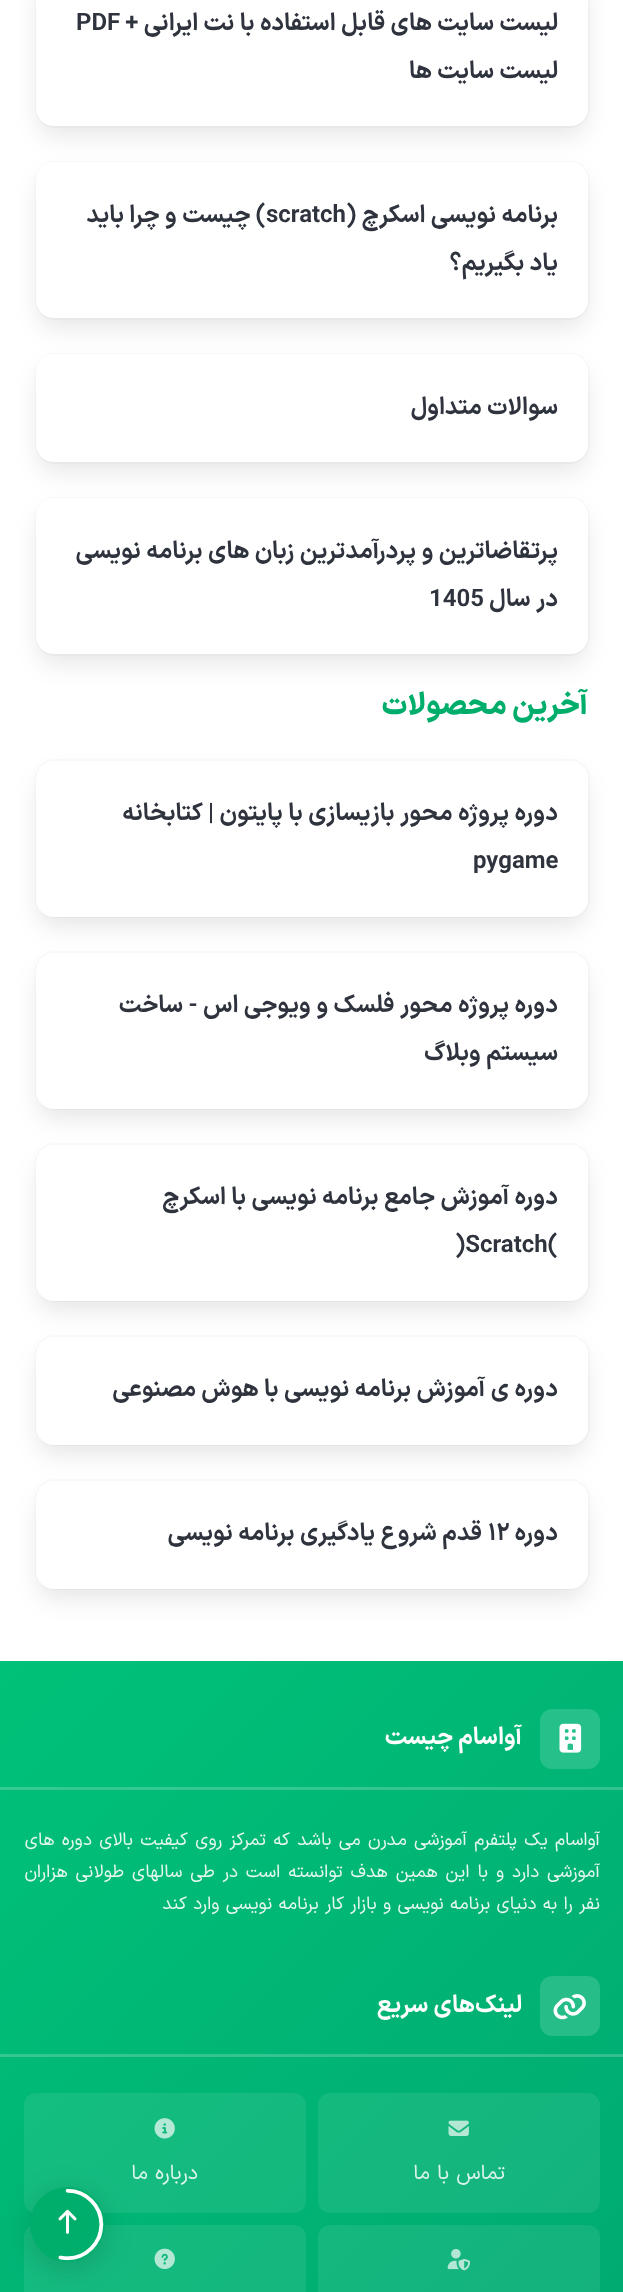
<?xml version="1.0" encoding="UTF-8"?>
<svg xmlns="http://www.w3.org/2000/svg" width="623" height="2292">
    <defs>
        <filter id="blur1" x="-50%" y="-200%" width="200%" height="500%"><feGaussianBlur stdDeviation="12"/></filter>
        <linearGradient id="g1" gradientUnits="userSpaceOnUse" x1="-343" y1="2004" x2="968" y2="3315"><stop offset="0" stop-color="#00C178"/><stop offset="1" stop-color="#00936B"/></linearGradient>
        <linearGradient id="g2" gradientUnits="userSpaceOnUse" x1="-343" y1="2004" x2="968" y2="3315"><stop offset="0" stop-color="#33CD93"/><stop offset="1" stop-color="#33A989"/></linearGradient>
        <filter id="blur2" x="-50%" y="-200%" width="200%" height="500%"><feGaussianBlur stdDeviation="15"/></filter>
    </defs>
    <rect width="100%" height="100%" fill="#FFFFFF"/>
    <rect x="36" y="-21" width="553" height="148" rx="19" fill="none" stroke="#FAFAFA" stroke-width="2"/>
    <rect x="39" y="-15" width="546" height="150" rx="15" fill="#090A0C" fill-opacity="0.1" filter="url(#blur1)"/>
    <rect x="36" y="-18" width="552" height="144" rx="18" fill="#FFFFFF"/>
    <text x="558" y="30" font-family="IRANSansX" font-size="24" font-weight="700" direction="rtl" fill="#2E333D">لیست سایت های قابل استفاده با نت ایرانی +</text>
    <text x="76" y="30" font-family="IRANSansX" font-size="24" font-weight="700" fill="#2E333D">PDF</text>
    <text x="558" y="78" font-family="IRANSansX" font-size="24" font-weight="700" direction="rtl" fill="#2E333D">لیست سایت ها</text>
    <rect x="36" y="162" width="553" height="157" rx="19" fill="none" stroke="#FAFAFA" stroke-width="2"/>
    <rect x="39" y="177" width="546" height="150" rx="15" fill="#090A0C" fill-opacity="0.1" filter="url(#blur1)"/>
    <rect x="36" y="162" width="552" height="156" rx="18" fill="#FFFFFF"/>
    <text x="558" y="222" font-family="IRANSansX" font-size="24" font-weight="700" direction="rtl" fill="#2E333D">برنامه نویسی اسکرچ (</text>
    <text x="266" y="222" font-family="IRANSansX" font-size="24" font-weight="700" fill="#2E333D">scratch</text>
    <text x="266" y="222" font-family="IRANSansX" font-size="24" font-weight="700" direction="rtl" fill="#2E333D">) چیست و چرا باید</text>
    <text x="558" y="270" font-family="IRANSansX" font-size="24" font-weight="700" direction="rtl" fill="#2E333D">یاد بگیریم؟</text>
    <rect x="36" y="354" width="553" height="109" rx="19" fill="none" stroke="#FAFAFA" stroke-width="2"/>
    <rect x="39" y="369" width="546" height="102" rx="15" fill="#090A0C" fill-opacity="0.1" filter="url(#blur1)"/>
    <rect x="36" y="354" width="552" height="108" rx="18" fill="#FFFFFF"/>
    <text x="558" y="414" font-family="IRANSansX" font-size="24" font-weight="700" direction="rtl" fill="#2E333D">سوالات متداول</text>
    <rect x="36" y="498" width="553" height="157" rx="19" fill="none" stroke="#FAFAFA" stroke-width="2"/>
    <rect x="39" y="513" width="546" height="150" rx="15" fill="#090A0C" fill-opacity="0.1" filter="url(#blur1)"/>
    <rect x="36" y="498" width="552" height="156" rx="18" fill="#FFFFFF"/>
    <text x="558" y="558" font-family="IRANSansX" font-size="24" font-weight="700" direction="rtl" fill="#2E333D">پرتقاضاترین و پردرآمدترین زبان های برنامه نویسی</text>
    <text x="558" y="606" font-family="IRANSansX" font-size="24" font-weight="700" direction="rtl" fill="#2E333D">در سال</text>
    <text x="429" y="606" font-family="IRANSansX" font-size="24" font-weight="700" fill="#2E333D">1405</text>
    <text x="588" y="714" font-family="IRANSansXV" font-size="30" font-weight="800" direction="rtl" fill="#00AE6C">آخرین محصولات</text>
    <rect x="36" y="760" width="553" height="157" rx="19" fill="none" stroke="#FAFAFA" stroke-width="2"/>
    <rect x="39" y="776" width="546" height="150" rx="15" fill="#090A0C" fill-opacity="0.1" filter="url(#blur1)"/>
    <rect x="36" y="761" width="552" height="156" rx="18" fill="#FFFFFF"/>
    <text x="558" y="820" font-family="IRANSansX" font-size="24" font-weight="700" direction="rtl" fill="#2E333D">دوره پروژه محور بازیسازی با پایتون | کتابخانه</text>
    <text x="473" y="868" font-family="IRANSansX" font-size="24" font-weight="700" fill="#2E333D">pygame</text>
    <rect x="36" y="952" width="553" height="157" rx="19" fill="none" stroke="#FAFAFA" stroke-width="2"/>
    <rect x="39" y="968" width="546" height="150" rx="15" fill="#090A0C" fill-opacity="0.1" filter="url(#blur1)"/>
    <rect x="36" y="953" width="552" height="156" rx="18" fill="#FFFFFF"/>
    <text x="558" y="1012" font-family="IRANSansX" font-size="24" font-weight="700" direction="rtl" fill="#2E333D">دوره پروژه محور فلسک و ویوجی اس - ساخت</text>
    <text x="558" y="1060" font-family="IRANSansX" font-size="24" font-weight="700" direction="rtl" fill="#2E333D">سیستم وبلاگ</text>
    <rect x="36" y="1144" width="553" height="157" rx="19" fill="none" stroke="#FAFAFA" stroke-width="2"/>
    <rect x="39" y="1160" width="546" height="150" rx="15" fill="#090A0C" fill-opacity="0.1" filter="url(#blur1)"/>
    <rect x="36" y="1145" width="552" height="156" rx="18" fill="#FFFFFF"/>
    <text x="558" y="1204" font-family="IRANSansX" font-size="24" font-weight="700" direction="rtl" fill="#2E333D">دوره آموزش جامع برنامه نویسی با اسکرچ</text>
    <text x="455" y="1252" font-family="IRANSansX" font-size="24" font-weight="700" fill="#2E333D">)Scratch(</text>
    <rect x="36" y="1336" width="553" height="109" rx="19" fill="none" stroke="#FAFAFA" stroke-width="2"/>
    <rect x="39" y="1352" width="546" height="102" rx="15" fill="#090A0C" fill-opacity="0.1" filter="url(#blur1)"/>
    <rect x="36" y="1337" width="552" height="108" rx="18" fill="#FFFFFF"/>
    <text x="558" y="1396" font-family="IRANSansX" font-size="24" font-weight="700" direction="rtl" fill="#2E333D">دوره ی آموزش برنامه نویسی با هوش مصنوعی</text>
    <rect x="36" y="1480" width="553" height="109" rx="19" fill="none" stroke="#FAFAFA" stroke-width="2"/>
    <rect x="39" y="1496" width="546" height="102" rx="15" fill="#090A0C" fill-opacity="0.1" filter="url(#blur1)"/>
    <rect x="36" y="1481" width="552" height="108" rx="18" fill="#FFFFFF"/>
    <text x="558" y="1540" font-family="IRANSansX" font-size="24" font-weight="700" direction="rtl" fill="#2E333D">دوره</text>
    <text x="488" y="1540" font-family="IRANSansX" font-size="24" font-weight="700" fill="#2E333D">۱۲</text>
    <text x="482" y="1540" font-family="IRANSansX" font-size="24" font-weight="700" direction="rtl" fill="#2E333D">قدم شروع یادگیری برنامه نویسی</text>
    <rect x="0" y="1661" width="623" height="631" fill="url(#g1)"/>
    <rect x="0" y="2054" width="623" height="3" fill="url(#g2)"/>
    <rect x="0" y="1787" width="623" height="3" fill="url(#g2)"/>
    <rect x="540" y="1709" width="60" height="60" rx="12" fill="#26C18A"/>
    <image x="559" y="1723" width="23" height="30" href="img_01.png"/>
    <text x="522" y="1744" font-family="IRANSansX" font-size="24" font-weight="700" direction="rtl" fill="#FFFFFF">آواسام چیست</text>
    <text font-family="IRANSansX" font-size="18" direction="rtl" fill="#E6F8F1">
        <tspan x="600" y="1845" word-spacing="1">آواسام یک پلتفرم آموزشی مدرن می باشد که تمرکز روی کیفیت بالای دوره های</tspan>
        <tspan x="600" y="1877" word-spacing="1.6">آموزشی دارد و با این همین هدف توانسته است در طی سالهای طولانی هزاران</tspan>
        <tspan x="600" y="1909">نفر را به دنیای برنامه نویسی و بازار کار برنامه نویسی وارد کند</tspan>
    </text>
    <rect x="540" y="1976" width="60" height="60" rx="12" fill="#26BD88"/>
    <image x="553" y="1994" width="33" height="26" href="img_02.png"/>
    <text x="522" y="2012" font-family="IRANSansX" font-size="24" font-weight="700" direction="rtl" fill="#FFFFFF">لینک‌های سریع</text>
    <rect x="318" y="2093" width="282" height="120" rx="12" fill="#FFFFFF" fill-opacity="0.08"/>
    <image x="448" y="2120" width="21" height="16" href="img_03.png"/>
    <text x="505" y="2179" font-family="IRANSansX" font-size="20.5" direction="rtl" fill="#DCF4EC">تماس با ما</text>
    <rect x="24" y="2093" width="282" height="120" rx="12" fill="#FFFFFF" fill-opacity="0.08"/>
    <image x="154" y="2118" width="21" height="21" href="img_04.png"/>
    <text x="198" y="2179" font-family="IRANSansX" font-size="20.5" direction="rtl" fill="#DCF4EC">درباره ما</text>
    <rect x="318" y="2225" width="282" height="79" rx="12" fill="#FFFFFF" fill-opacity="0.08"/>
    <image x="447" y="2249" width="23" height="22" href="img_05.png"/>
    <rect x="24" y="2225" width="282" height="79" rx="12" fill="#FFFFFF" fill-opacity="0.08"/>
    <image x="154" y="2248" width="21" height="21" href="img_06.png"/>
    <rect x="30" y="2193" width="75" height="75" rx="37.5" fill="#000000" fill-opacity="0.15" filter="url(#blur2)"/>
    <circle cx="67.5" cy="2224.5" r="37.5" fill="#00AE6C"/>
    <image x="58" y="2188" width="46" height="73" href="img_07.png"/>
    <image x="58" y="2209" width="19" height="25" href="img_08.png"/>
</svg>
